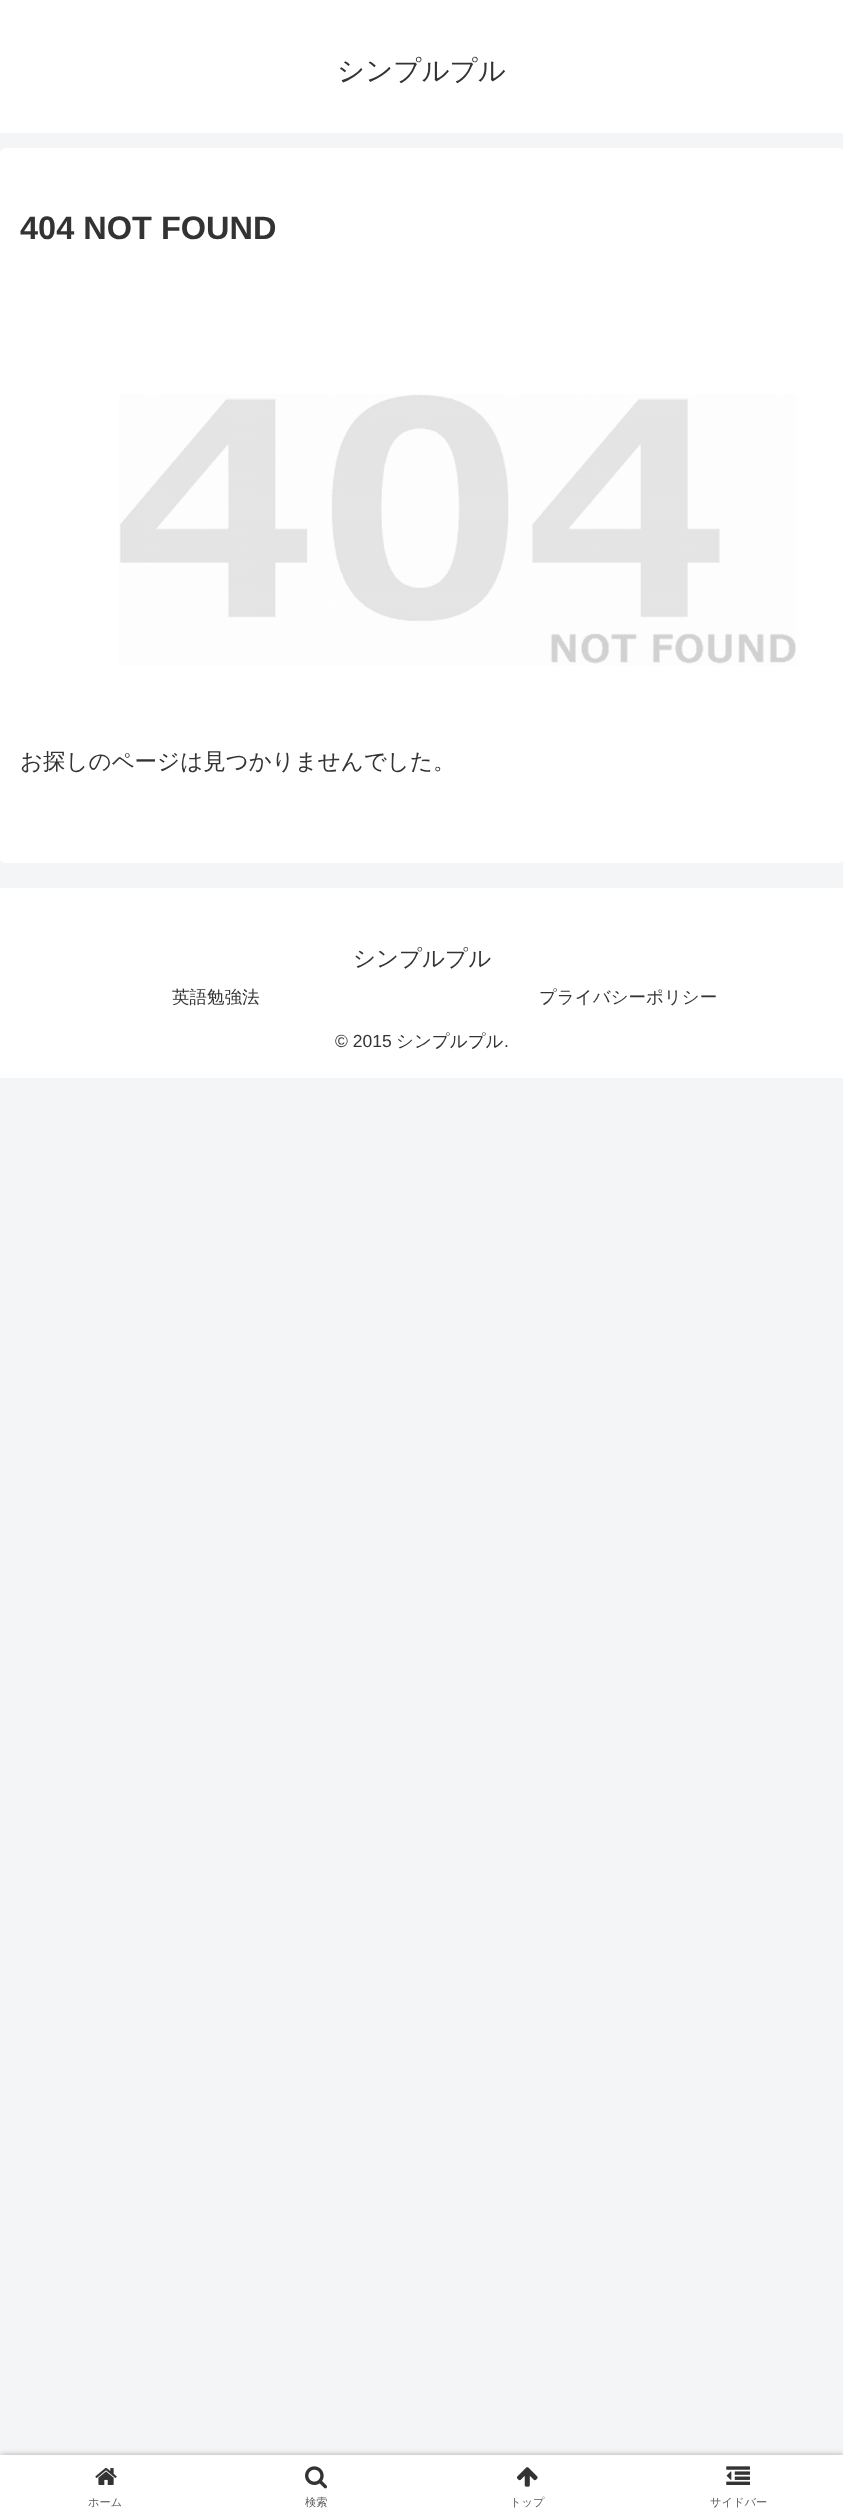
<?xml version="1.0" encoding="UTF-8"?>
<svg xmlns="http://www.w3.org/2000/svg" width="843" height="2517">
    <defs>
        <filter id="blur1" x="-50%" y="-200%" width="200%" height="500%"><feGaussianBlur stdDeviation="3"/></filter>
    </defs>
    <rect width="100%" height="100%" fill="#F4F5F7"/>
    <rect x="0" y="0" width="843" height="133" fill="#FFFFFF"/>
    <text x="337" y="80" font-family="WenQuanYi Zen Hei" font-size="27.5" font-weight="500" fill="#333333">シンプルプル</text>
    <rect x="0" y="148" width="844" height="715" rx="5" fill="#FFFFFF"/>
    <text x="20" y="239" font-family="Liberation Sans" font-size="32.5" font-weight="700" fill="#333333">404 NOT FOUND</text>
    <image x="119" y="394" width="677" height="272" href="img_01.png"/>
    <text x="20" y="769" font-family="WenQuanYi Zen Hei" font-size="22.5" font-weight="500" fill="#333333">お探しのページは見つかりませんでした。</text>
    <rect x="0" y="888" width="843" height="190" fill="#FFFFFF"/>
    <text x="353" y="966" font-family="WenQuanYi Zen Hei" font-size="22.5" font-weight="500" fill="#333333">シンプルプル</text>
    <text x="172" y="1003" font-family="WenQuanYi Zen Hei" font-size="17.5" font-weight="500" fill="#333333">英語勉強法</text>
    <text x="539" y="1003" font-family="WenQuanYi Zen Hei" font-size="17.5" font-weight="500" fill="#333333">プライバシーポリシー</text>
    <text x="335" y="1047" font-family="Liberation Sans" font-size="17.5" fill="#333333">© 2015</text>
    <text x="396" y="1047" font-family="WenQuanYi Zen Hei" font-size="17.5" font-weight="500" fill="#333333">シンプルプル</text>
    <text x="504" y="1047" font-family="Liberation Sans" font-size="17.5" fill="#333333">.</text>
    <rect x="0" y="2455" width="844" height="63" fill="#A9A9A9" filter="url(#blur1)"/>
    <rect x="0" y="2455" width="843" height="62" fill="#FFFFFF"/>
    <image x="95" y="2468" width="22" height="17" href="img_02.png"/>
    <text x="88" y="2506" font-family="WenQuanYi Zen Hei" font-size="11.25" font-weight="500" fill="#5C5C5C">ホーム</text>
    <image x="305" y="2466" width="22" height="23" href="img_03.png"/>
    <text x="305" y="2506" font-family="WenQuanYi Zen Hei" font-size="11.25" font-weight="500" fill="#5C5C5C">検索</text>
    <image x="517" y="2467" width="21" height="20" href="img_04.png"/>
    <text x="510" y="2506" font-family="WenQuanYi Zen Hei" font-size="11.25" font-weight="500" fill="#5C5C5C">トップ</text>
    <image x="726" y="2466" width="24" height="19" href="img_05.png"/>
    <text x="710" y="2506" font-family="WenQuanYi Zen Hei" font-size="11.25" font-weight="500" fill="#5C5C5C">サイドバー</text>
</svg>
